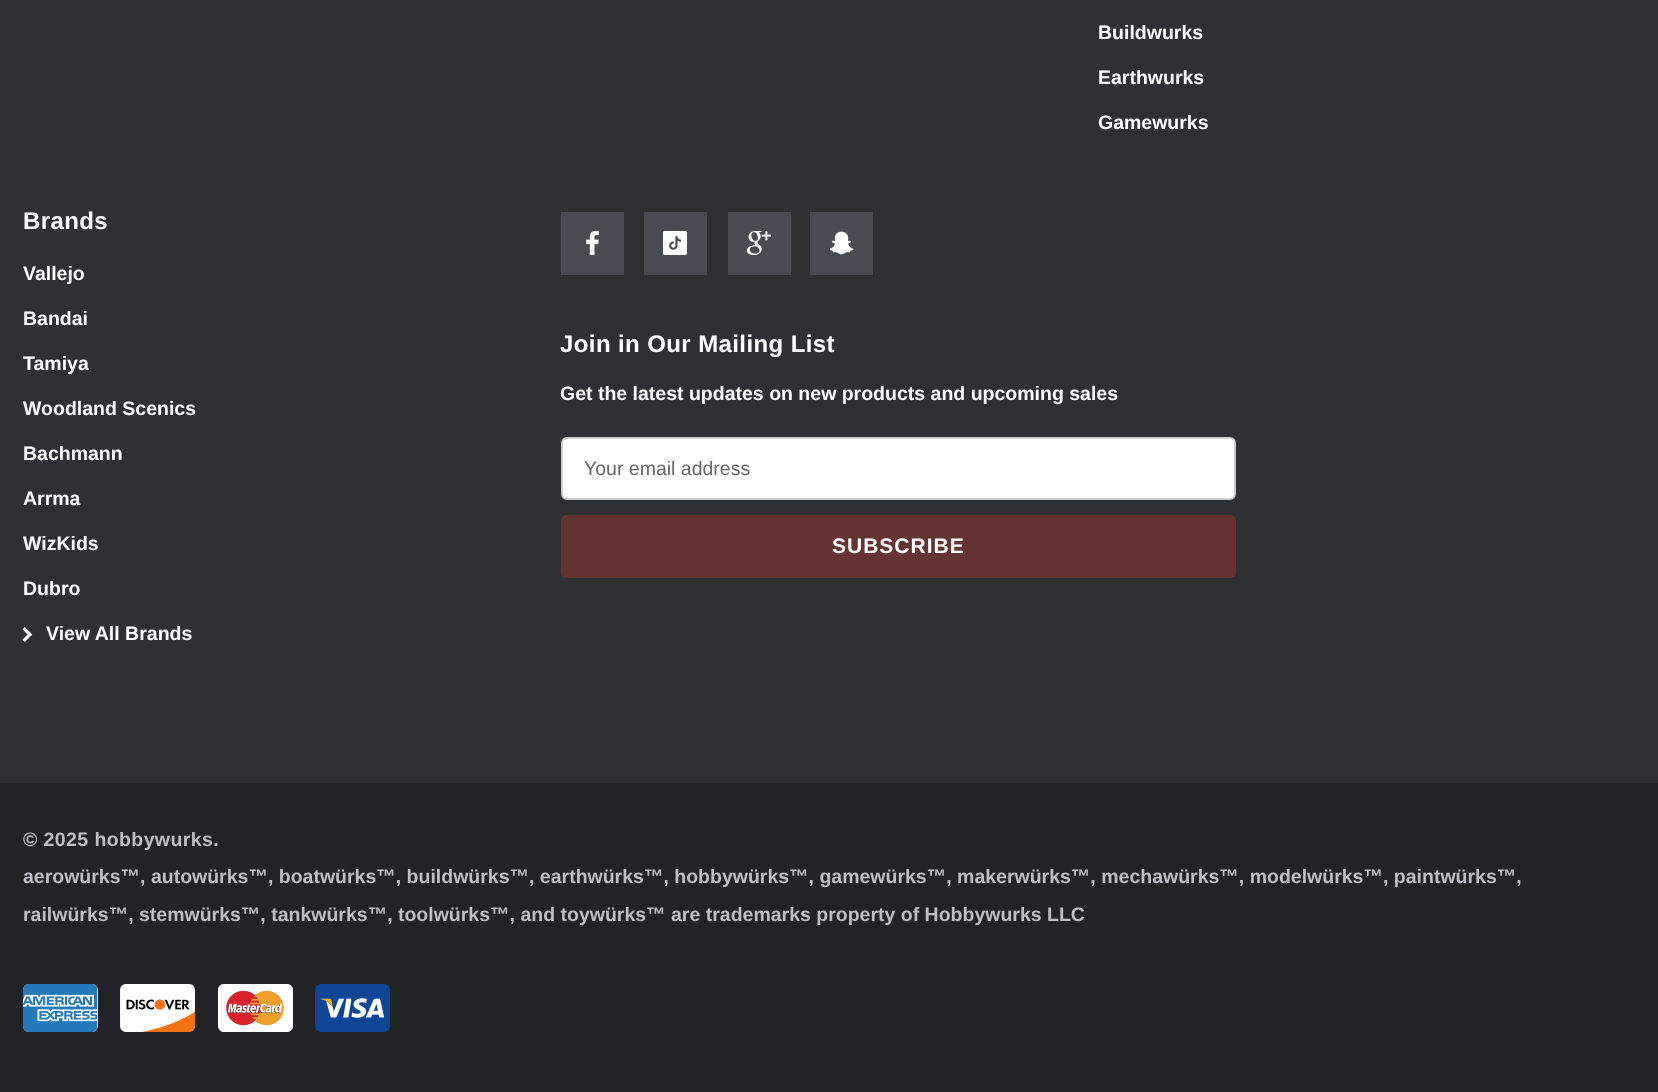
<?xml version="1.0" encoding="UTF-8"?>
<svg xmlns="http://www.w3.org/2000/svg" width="1658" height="1092">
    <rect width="100%" height="100%" fill="#2E3034"/>
    <text x="1098" y="39" font-family="Arimo" font-size="19.5" font-weight="700" fill="#FFFFFF">Buildwurks</text>
    <text x="1098" y="84" font-family="Arimo" font-size="19.5" font-weight="700" fill="#FFFFFF">Earthwurks</text>
    <text x="1098" y="129" font-family="Arimo" font-size="19.5" font-weight="700" fill="#FFFFFF">Gamewurks</text>
    <text x="23" y="229" font-family="Arimo" font-size="24" font-weight="700" letter-spacing="0.4" fill="#FFFFFF">Brands</text>
    <text x="23" y="280" font-family="Arimo" font-size="19.5" font-weight="700" fill="#FFFFFF">Vallejo</text>
    <text x="23" y="325" font-family="Arimo" font-size="19.5" font-weight="700" fill="#FFFFFF">Bandai</text>
    <text x="23" y="370" font-family="Arimo" font-size="19.5" font-weight="700" fill="#FFFFFF">Tamiya</text>
    <text x="23" y="415" font-family="Arimo" font-size="19.5" font-weight="700" fill="#FFFFFF">Woodland Scenics</text>
    <text x="23" y="460" font-family="Arimo" font-size="19.5" font-weight="700" fill="#FFFFFF">Bachmann</text>
    <text x="23" y="505" font-family="Arimo" font-size="19.5" font-weight="700" fill="#FFFFFF">Arrma</text>
    <text x="23" y="550" font-family="Arimo" font-size="19.5" font-weight="700" fill="#FFFFFF">WizKids</text>
    <text x="23" y="595" font-family="Arimo" font-size="19.5" font-weight="700" fill="#FFFFFF">Dubro</text>
    <image x="22" y="627" width="11" height="15" href="img_01.png"/>
    <text x="46" y="640" font-family="Arimo" font-size="19.5" font-weight="700" fill="#FFFFFF">View All Brands</text>
    <rect x="561" y="212" width="63" height="63" fill="#484B51"/>
    <image x="586" y="231" width="13" height="24" href="img_02.png"/>
    <rect x="644" y="212" width="63" height="63" fill="#484B51"/>
    <image x="663" y="231" width="24" height="24" href="img_03.png"/>
    <rect x="728" y="212" width="63" height="63" fill="#484B51"/>
    <image x="747" y="231" width="24" height="24" href="img_04.png"/>
    <rect x="810" y="212" width="63" height="63" fill="#484B51"/>
    <image x="830" y="231" width="24" height="24" href="img_05.png"/>
    <text x="560" y="352" font-family="Arimo" font-size="24" font-weight="700" letter-spacing="0.4" fill="#FFFFFF">Join in Our Mailing List</text>
    <text x="560" y="400" font-family="Arimo" font-size="19.5" font-weight="700" fill="#FFFFFF">Get the latest updates on new products and upcoming sales</text>
    <rect x="562" y="438" width="673" height="61" rx="5" fill="#FFFFFF" stroke="#CCCCCC" stroke-width="2"/>
    <text x="584" y="475" font-family="Arimo" font-size="19.5" fill="#666666">Your email address</text>
    <rect x="562" y="516" width="673" height="61" rx="4" fill="#663333" stroke="#663333" stroke-width="2"/>
    <text x="832" y="553" font-family="Arimo" font-size="21" font-weight="700" letter-spacing="1" fill="#FFFFFF">SUBSCRIBE</text>
    <rect x="0" y="783" width="1658" height="309" fill="#222326"/>
    <text x="23" y="846" font-family="Arimo" font-size="19.5" font-weight="700" letter-spacing="0.4" fill="#BCBFC5">© 2025 hobbywurks.</text>
    <text font-family="Arimo" font-size="19.5" font-weight="700" fill="#BCBFC5">
        <tspan x="23" y="883">aerowürks™, autowürks™, boatwürks™, buildwürks™, earthwürks™, hobbywürks™, gamewürks™, makerwürks™, mechawürks™, modelwürks™, paintwürks™,</tspan>
        <tspan x="23" y="921">railwürks™, stemwürks™, tankwürks™, toolwürks™, and toywürks™ are trademarks property of Hobbywurks LLC</tspan>
    </text>
    <rect x="23" y="984" width="75" height="48" rx="6" fill="#E5E5E5"/>
    <image x="23" y="984" width="75" height="48" href="img_06.png"/>
    <image x="120" y="984" width="75" height="48" href="img_07.png"/>
    <image x="218" y="984" width="75" height="48" href="img_08.png"/>
    <image x="315" y="984" width="75" height="48" href="img_09.png"/>
</svg>
